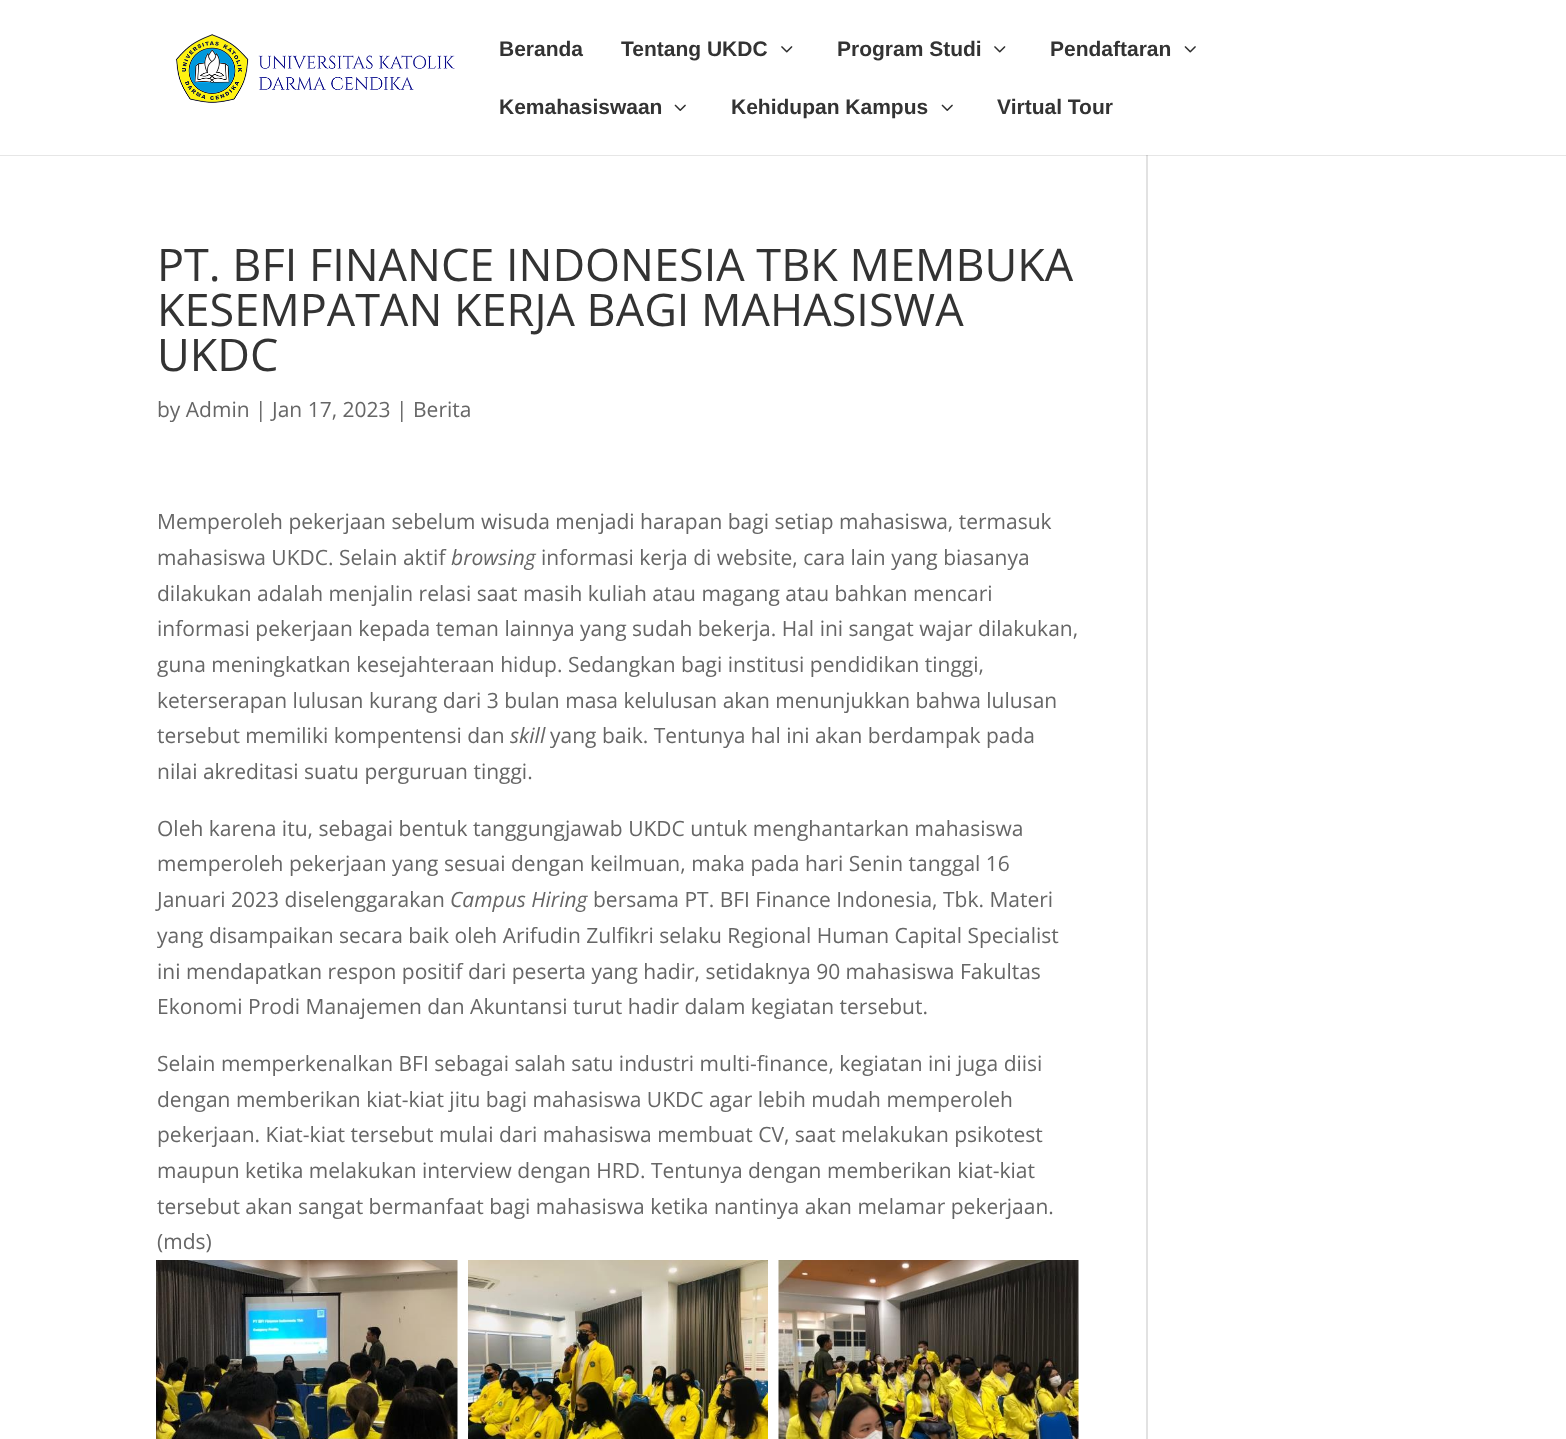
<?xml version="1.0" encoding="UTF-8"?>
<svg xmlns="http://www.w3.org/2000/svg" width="1566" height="1439">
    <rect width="100%" height="100%" fill="#FFFFFF"/>
    <rect x="0" y="155" width="1566" height="1" fill="#E6E6E6"/>
    <image x="175" y="34" width="280" height="69" href="img_01.png"/>
    <text x="499" y="56" font-family="Liberation Sans" font-size="21" font-weight="700" fill="#333333">Beranda</text>
    <text x="621" y="56" font-family="Liberation Sans" font-size="21" font-weight="700" fill="#333333">Tentang UKDC</text>
    <image x="781" y="46" width="12" height="7" href="img_02.png"/>
    <text x="837" y="56" font-family="Liberation Sans" font-size="21" font-weight="700" fill="#333333">Program Studi</text>
    <image x="994" y="46" width="12" height="7" href="img_02.png"/>
    <text x="1050" y="56" font-family="Liberation Sans" font-size="21" font-weight="700" fill="#333333">Pendaftaran</text>
    <image x="1184" y="46" width="12" height="7" href="img_03.png"/>
    <text x="499" y="114" font-family="Liberation Sans" font-size="21" font-weight="700" fill="#333333">Kemahasiswaan</text>
    <image x="674" y="104" width="12" height="7" href="img_04.png"/>
    <text x="731" y="114" font-family="Liberation Sans" font-size="21" font-weight="700" fill="#333333">Kehidupan Kampus</text>
    <image x="941" y="104" width="12" height="7" href="img_04.png"/>
    <text x="997" y="114" font-family="Liberation Sans" font-size="21" font-weight="700" fill="#333333">Virtual Tour</text>
    <text font-family="Open Sans" font-size="45" fill="#333333">
        <tspan x="157" y="281">PT. BFI FINANCE INDONESIA TBK MEMBUKA</tspan>
        <tspan x="157" y="326">KESEMPATAN KERJA BAGI MAHASISWA</tspan>
        <tspan x="157" y="371">UKDC</tspan>
    </text>
    <text x="157" y="417" font-family="Open Sans" font-size="21" fill="#666666">by Admin | Jan 17, 2023 | Berita</text>
    <text font-family="Open Sans" font-size="21" fill="#666666">
        <tspan x="157" y="529">Memperoleh pekerjaan sebelum wisuda menjadi harapan bagi setiap mahasiswa, termasuk</tspan>
        <tspan x="157" y="565">mahasiswa UKDC. Selain aktif</tspan>
    </text>
    <text x="451" y="565" font-family="Open Sans" font-size="21" font-style="italic" fill="#666666">browsing</text>
    <text x="541" y="565" font-family="Open Sans" font-size="21" fill="#666666">informasi kerja di website, cara lain yang biasanya</text>
    <text font-family="Open Sans" font-size="21" fill="#666666">
        <tspan x="157" y="601">dilakukan adalah menjalin relasi saat masih kuliah atau magang atau bahkan mencari</tspan>
        <tspan x="157" y="636">informasi pekerjaan kepada teman lainnya yang sudah bekerja. Hal ini sangat wajar dilakukan,</tspan>
        <tspan x="157" y="672">guna meningkatkan kesejahteraan hidup. Sedangkan bagi institusi pendidikan tinggi,</tspan>
        <tspan x="157" y="708">keterserapan lulusan kurang dari 3 bulan masa kelulusan akan menunjukkan bahwa lulusan</tspan>
        <tspan x="157" y="743">tersebut memiliki kompentensi dan</tspan>
    </text>
    <text x="510" y="743" font-family="Open Sans" font-size="21" font-style="italic" fill="#666666">skill</text>
    <text x="550" y="743" font-family="Open Sans" font-size="21" fill="#666666">yang baik. Tentunya hal ini akan berdampak pada</text>
    <text x="157" y="779" font-family="Open Sans" font-size="21" fill="#666666">nilai akreditasi suatu perguruan tinggi.</text>
    <text font-family="Open Sans" font-size="21" fill="#666666">
        <tspan x="157" y="836">Oleh karena itu, sebagai bentuk tanggungjawab UKDC untuk menghantarkan mahasiswa</tspan>
        <tspan x="157" y="871">memperoleh pekerjaan yang sesuai dengan keilmuan, maka pada hari Senin tanggal 16</tspan>
        <tspan x="157" y="907">Januari 2023 diselenggarakan</tspan>
    </text>
    <text x="450" y="907" font-family="Open Sans" font-size="21" font-style="italic" fill="#666666">Campus Hiring</text>
    <text x="593" y="907" font-family="Open Sans" font-size="21" fill="#666666">bersama PT. BFI Finance Indonesia, Tbk. Materi</text>
    <text font-family="Open Sans" font-size="21" fill="#666666">
        <tspan x="157" y="943">yang disampaikan secara baik oleh Arifudin Zulfikri selaku Regional Human Capital Specialist</tspan>
        <tspan x="157" y="979">ini mendapatkan respon positif dari peserta yang hadir, setidaknya 90 mahasiswa Fakultas</tspan>
        <tspan x="157" y="1014">Ekonomi Prodi Manajemen dan Akuntansi turut hadir dalam kegiatan tersebut.</tspan>
    </text>
    <text font-family="Open Sans" font-size="21" fill="#666666">
        <tspan x="157" y="1071">Selain memperkenalkan BFI sebagai salah satu industri multi-finance, kegiatan ini juga diisi</tspan>
        <tspan x="157" y="1107">dengan memberikan kiat-kiat jitu bagi mahasiswa UKDC agar lebih mudah memperoleh</tspan>
        <tspan x="157" y="1142">pekerjaan. Kiat-kiat tersebut mulai dari mahasiswa membuat CV, saat melakukan psikotest</tspan>
        <tspan x="157" y="1178">maupun ketika melakukan interview dengan HRD. Tentunya dengan memberikan kiat-kiat</tspan>
        <tspan x="157" y="1214">tersebut akan sangat bermanfaat bagi mahasiswa ketika nantinya akan melamar pekerjaan.</tspan>
        <tspan x="157" y="1249">(mds)</tspan>
    </text>
    <image x="156" y="1260" width="302" height="179" href="img_05.png"/>
    <image x="468" y="1260" width="300" height="179" href="img_06.png"/>
    <image x="778" y="1260" width="301" height="179" href="img_07.png"/>
    <rect x="1146" y="155" width="2" height="1284" fill="#E2E2E2"/>
    <rect x="1146" y="155" width="2" height="1" fill="#CBCBCB"/>
</svg>
